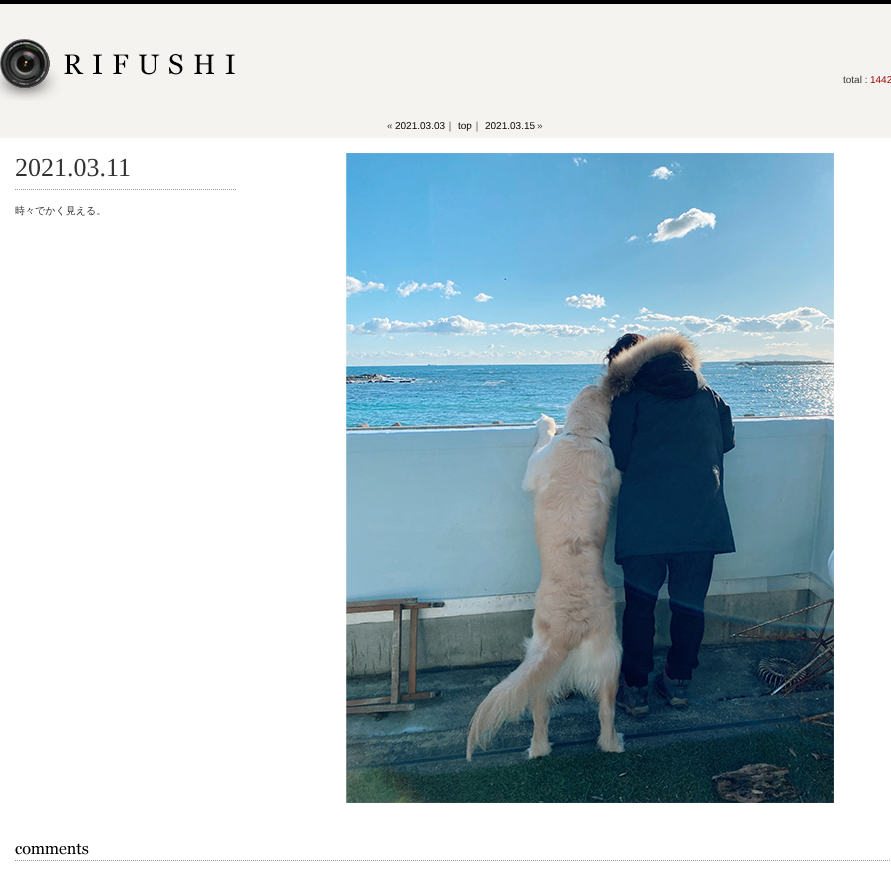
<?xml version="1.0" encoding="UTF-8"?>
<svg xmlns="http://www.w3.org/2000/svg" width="891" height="871">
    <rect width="100%" height="100%" fill="#000000"/>
    <rect x="0" y="4" width="891" height="134" fill="#F5F3EF"/>
    <image x="0" y="39" width="235" height="62" href="img_01.png"/>
    <text x="843" y="83" font-family="Liberation Sans" font-size="10" fill="#333333">total :</text>
    <text x="870" y="83" font-family="Liberation Sans" font-size="10" fill="#990000">1442</text>
    <text x="387" y="129" font-family="Liberation Sans" font-size="10" fill="#333333">«</text>
    <text x="395" y="129" font-family="Liberation Sans" font-size="10" fill="#000000">2021.03.03</text>
    <text x="445" y="129" font-family="WenQuanYi Zen Hei" font-size="10" font-weight="500" fill="#333333">｜</text>
    <text x="458" y="129" font-family="Liberation Sans" font-size="10" fill="#000000">top</text>
    <text x="472" y="129" font-family="WenQuanYi Zen Hei" font-size="10" font-weight="500" fill="#333333">｜</text>
    <text x="485" y="129" font-family="Liberation Sans" font-size="10" fill="#000000">2021.03.15</text>
    <text x="537" y="129" font-family="Liberation Sans" font-size="10" fill="#333333">»</text>
    <rect x="0" y="138" width="891" height="733" fill="#FFFFFF"/>
    <path d="M 15 189.5 H 237" fill="none" stroke="#999999" stroke-dasharray="1 1"/>
    <text x="15" y="176" font-family="Liberation Serif" font-size="26" fill="#333333">2021.03.11</text>
    <image x="346" y="153" width="488" height="650" href="img_02.png"/>
    <text x="15" y="214" font-family="WenQuanYi Zen Hei" font-size="10" font-weight="500" fill="#333333">時々でかく見える。</text>
    <path d="M 15 860.5 H 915" fill="none" stroke="#999999" stroke-dasharray="1 1"/>
    <image x="15" y="843" width="74" height="12" href="img_03.png"/>
</svg>
